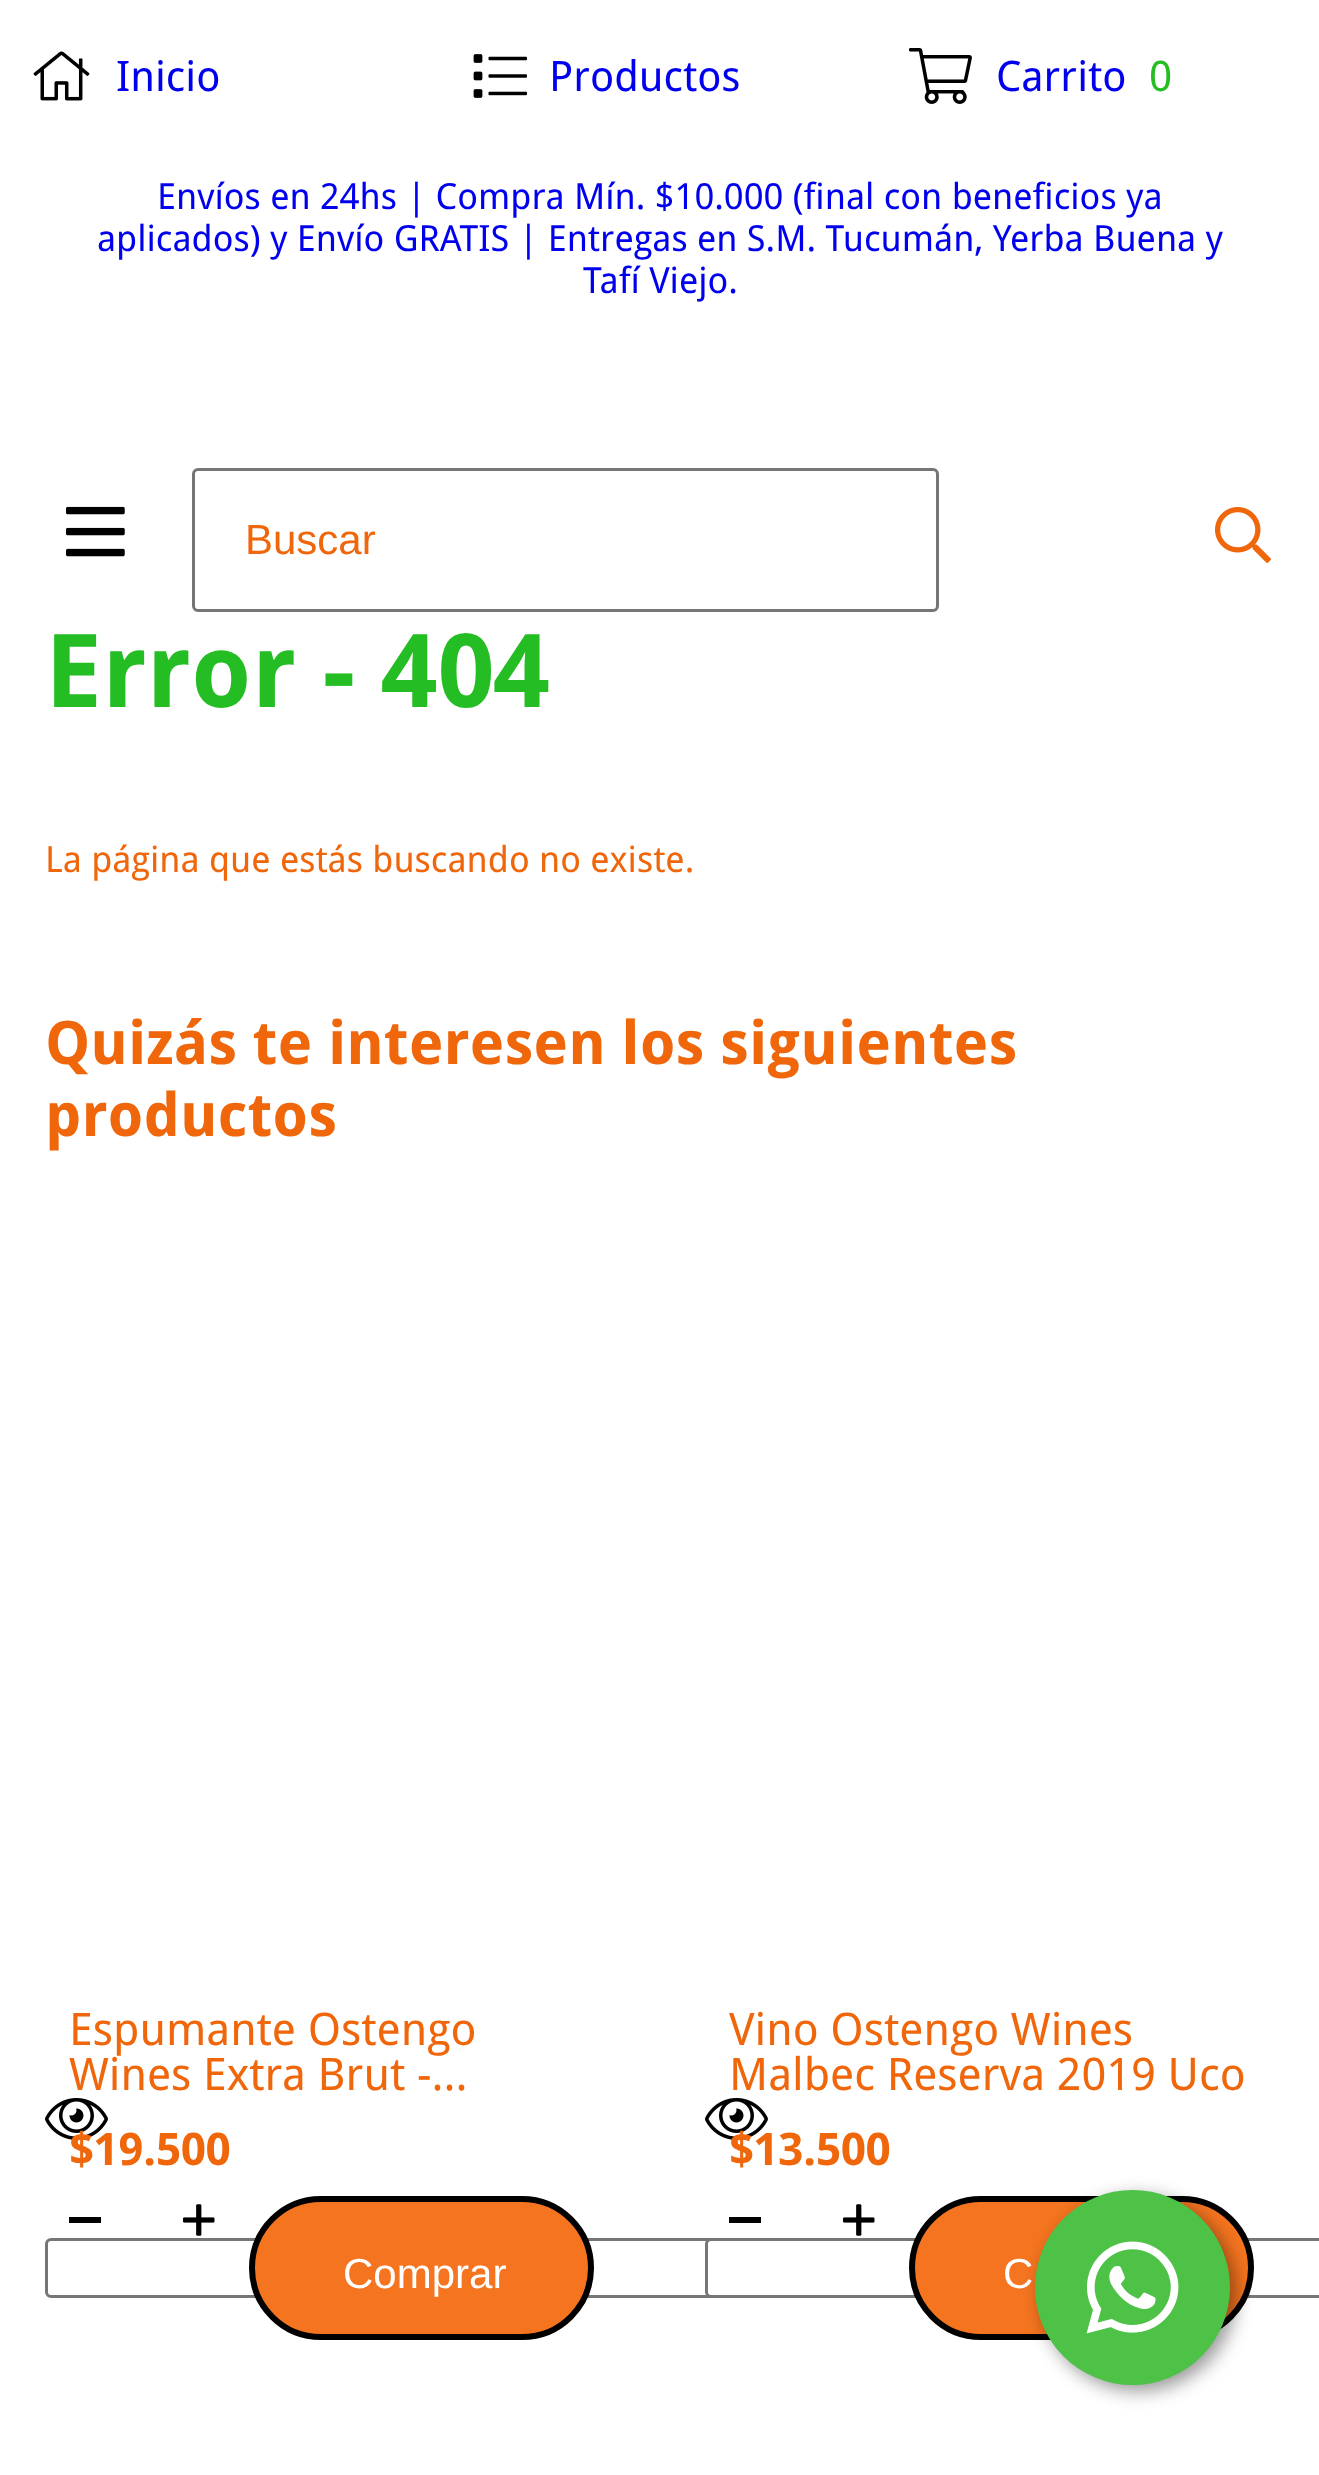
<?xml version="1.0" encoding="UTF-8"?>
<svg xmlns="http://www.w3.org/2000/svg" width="1319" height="2475">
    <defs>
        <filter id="blur1" x="-50%" y="-200%" width="200%" height="500%"><feGaussianBlur stdDeviation="9"/></filter>
    </defs>
    <rect width="100%" height="100%" fill="#FFFFFF"/>
    <image x="33" y="51" width="57" height="50" href="img_01.png"/>
    <text x="116" y="91" font-family="Droid Sans" font-size="42" fill="#0000EE">Inicio</text>
    <image x="473" y="54" width="54" height="44" href="img_02.png"/>
    <text x="549" y="91" font-family="Droid Sans" font-size="42" fill="#0000EE">Productos</text>
    <image x="909" y="48" width="63" height="56" href="img_03.png"/>
    <text x="996" y="91" font-family="Droid Sans" font-size="42" fill="#0000EE">Carrito</text>
    <text x="1149" y="91" font-family="Droid Sans" font-size="42" fill="#24BE24">0</text>
    <text x="157" y="209" font-family="Droid Sans" font-size="36" fill="#0000EE">Envíos en 24hs | Compra Mín. $10.000 (final con beneficios ya</text>
    <text x="97" y="251" font-family="Droid Sans" font-size="36" fill="#0000EE">aplicados) y Envío GRATIS | Entregas en S.M. Tucumán, Yerba Buena y</text>
    <text x="583" y="293" font-family="Droid Sans" font-size="36" fill="#0000EE">Tafí Viejo.</text>
    <image x="66" y="506" width="59" height="51" href="img_04.png"/>
    <rect x="193.5" y="469.5" width="744" height="141" rx="4.5" fill="none" stroke="#767676" stroke-width="3"/>
    <text x="245" y="554" font-family="Liberation Sans" font-size="42" fill="#EF660B">Buscar</text>
    <image x="1215" y="507" width="56" height="56" href="img_05.png"/>
    <text x="45" y="707" font-family="Droid Sans" font-size="102" font-weight="700" fill="#24BE24">Error - 404</text>
    <text x="45" y="872" font-family="Droid Sans" font-size="36" fill="#EF660B">La página que estás buscando no existe.</text>
    <text font-family="Droid Sans" font-size="60" font-weight="700" fill="#EF660B">
        <tspan x="45" y="1064">Quizás te interesen los siguientes</tspan>
        <tspan x="45" y="1136">productos</tspan>
    </text>
    <text font-family="Droid Sans" font-size="45" fill="#EF660B">
        <tspan x="69" y="2045">Espumante Ostengo</tspan>
        <tspan x="69" y="2090">Wines Extra Brut -...</tspan>
    </text>
    <image x="45" y="2098" width="63" height="42" href="img_06.png"/>
    <text x="69" y="2165" font-family="Droid Sans" font-size="45" font-weight="700" fill="#EF660B">$19.500</text>
    <rect x="69" y="2217" width="32" height="6" fill="#000000"/>
    <image x="183" y="2204" width="32" height="32" href="img_07.png"/>
    <rect x="46.5" y="2239.5" width="684" height="57" rx="4.5" fill="none" stroke="#767676" stroke-width="3"/>
    <rect x="252" y="2199" width="339" height="138" rx="69" fill="#F5741F" stroke="#000000" stroke-width="6"/>
    <text x="343" y="2288" font-family="Liberation Sans" font-size="42" fill="#FFFFFF">Comprar</text>
    <text font-family="Droid Sans" font-size="45" fill="#EF660B">
        <tspan x="729" y="2045">Vino Ostengo Wines</tspan>
        <tspan x="729" y="2090">Malbec Reserva 2019 Uco</tspan>
    </text>
    <image x="705" y="2098" width="63" height="42" href="img_06.png"/>
    <text x="729" y="2165" font-family="Droid Sans" font-size="45" font-weight="700" fill="#EF660B">$13.500</text>
    <rect x="729" y="2217" width="32" height="6" fill="#000000"/>
    <image x="843" y="2204" width="32" height="32" href="img_07.png"/>
    <rect x="706.5" y="2239.5" width="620" height="57" rx="4.5" fill="#FFFFFF" stroke="#767676" stroke-width="3"/>
    <rect x="912" y="2199" width="339" height="138" rx="69" fill="#F5741F" stroke="#000000" stroke-width="6"/>
    <text x="1003" y="2288" font-family="Liberation Sans" font-size="42" fill="#FFFFFF">C</text>
    <rect x="1041" y="2196" width="195" height="195" rx="97.5" fill="#000000" fill-opacity="0.4" filter="url(#blur1)"/>
    <circle cx="1132.5" cy="2287.5" r="97.5" fill="#4DC247"/>
    <image x="1086" y="2241" width="93" height="93" href="img_08.png"/>
</svg>
